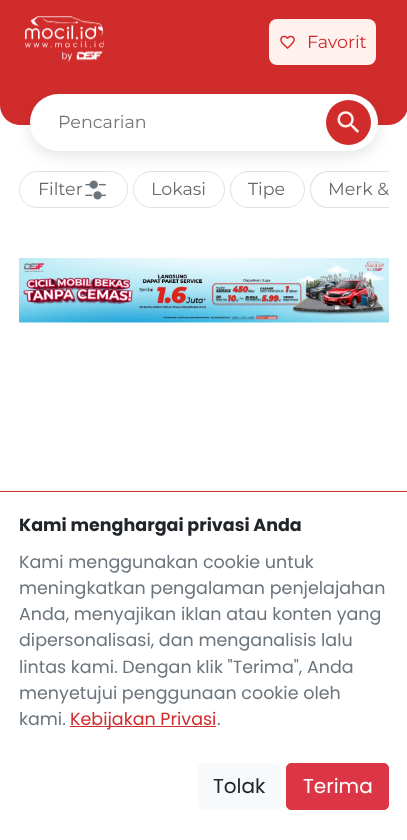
<?xml version="1.0" encoding="UTF-8"?>
<svg xmlns="http://www.w3.org/2000/svg" width="407" height="840">
    <defs>
        <filter id="blur1" x="-50%" y="-200%" width="200%" height="500%"><feGaussianBlur stdDeviation="7.5"/></filter>
    </defs>
    <rect width="100%" height="100%" fill="#FFFFFF"/>
    <path d="M 0 0 H 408 V 105 C 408 116 399 125 388 125 H 20 C 9 125 0 116 0 105 Z" fill="#D12C2C"/>
    <image x="25" y="16" width="79" height="46" href="img_01.png"/>
    <rect x="269" y="19" width="107" height="46" rx="8" fill="#FFF1EE"/>
    <image x="280" y="35" width="15" height="14" href="img_02.png"/>
    <text x="307" y="48" font-family="Montserrat" font-size="17.5" fill="#D12C2C">Favorit</text>
    <rect x="19.5" y="171.5" width="108" height="36" rx="18" fill="none" stroke="#DEE2E6"/>
    <rect x="133.5" y="171.5" width="91" height="36" rx="18" fill="none" stroke="#DEE2E6"/>
    <rect x="230.5" y="171.5" width="74" height="36" rx="18" fill="none" stroke="#DEE2E6"/>
    <path d="M 328 171 C 318 171 310 179 310 190 C 310 200 318 208 328 208 H 389 V 207 H 328 C 319 207 311 199 311 190 C 311 180 319 172 328 172 H 389 V 171 Z" fill="#DEE2E6"/>
    <rect x="30" y="99" width="348" height="57" rx="28.5" fill="#000000" fill-opacity="0.1" filter="url(#blur1)"/>
    <rect x="30" y="94" width="348" height="57" rx="28.5" fill="#FFFFFF"/>
    <text x="58" y="128" font-family="Montserrat" font-size="17.5" fill="#757575">Pencarian</text>
    <circle cx="348.5" cy="122.5" r="22.5" fill="#D12C2C"/>
    <image x="337" y="111" width="22" height="22" href="img_03.png"/>
    <text x="38" y="195" font-family="Montserrat" font-size="17.5" fill="#696969">Filter</text>
    <image x="85" y="180" width="21" height="20" href="img_04.png"/>
    <text x="151" y="195" font-family="Montserrat" font-size="17.5" fill="#696969">Lokasi</text>
    <text x="248" y="195" font-family="Montserrat" font-size="17.5" fill="#696969">Tipe</text>
    <text x="328" y="195" font-family="Montserrat" font-size="17.5" fill="#696969">Merk &amp;</text>
    <image x="19" y="258" width="370" height="65" href="img_05.png"/>
    <rect x="0" y="491" width="407" height="1" fill="#D12C2C"/>
    <text x="19" y="531" font-family="Poppins" font-size="17.5" font-weight="700" fill="#212529">Kami menghargai privasi Anda</text>
    <text font-family="Poppins" font-size="17.5" fill="#6C757D">
        <tspan x="19" y="568">Kami menggunakan cookie untuk</tspan>
        <tspan x="19" y="594">meningkatkan pengalaman penjelajahan</tspan>
        <tspan x="19" y="620">Anda, menyajikan iklan atau konten yang</tspan>
        <tspan x="19" y="646">dipersonalisasi, dan menganalisis lalu</tspan>
        <tspan x="19" y="673">lintas kami. Dengan klik "Terima", Anda</tspan>
        <tspan x="19" y="699">menyetujui penggunaan cookie oleh</tspan>
        <tspan x="19" y="725">kami.</tspan>
    </text>
    <rect x="70" y="726" width="146" height="1" fill="#D12C2C"/>
    <text x="70" y="725" font-family="Poppins" font-size="17.5" fill="#D12C2C">Kebijakan Privasi</text>
    <text x="217" y="725" font-family="Poppins" font-size="17.5" fill="#6C757D">.</text>
    <rect x="198" y="763" width="83" height="47" rx="5" fill="#F8F9FA"/>
    <text x="213" y="793" font-family="Poppins" font-size="20" fill="#212529">Tolak</text>
    <rect x="286.5" y="763.5" width="102" height="46" rx="4.5" fill="#DC3545" stroke="#DC3545"/>
    <text x="303" y="793" font-family="Poppins" font-size="20" fill="#FFFFFF">Terima</text>
</svg>
